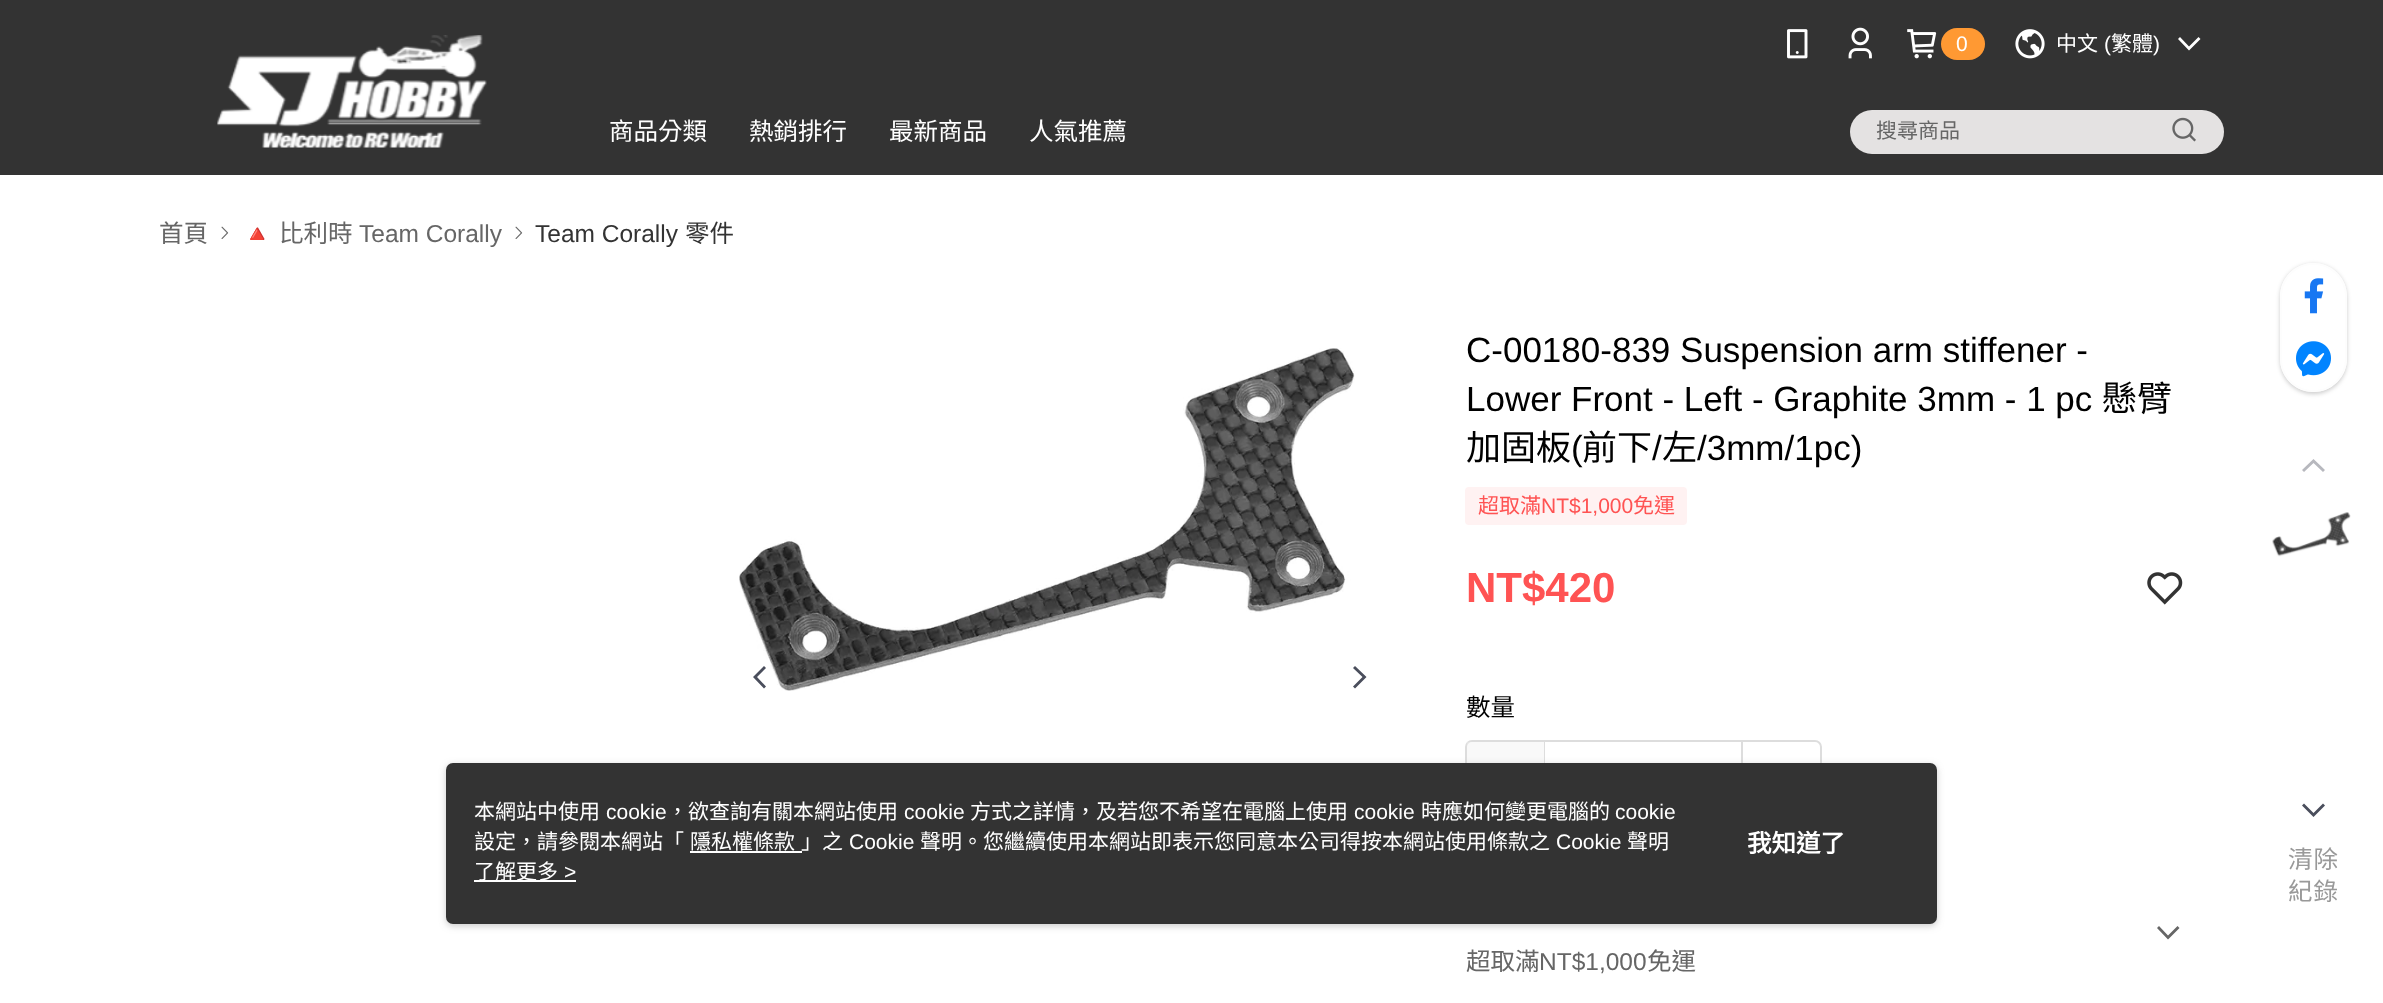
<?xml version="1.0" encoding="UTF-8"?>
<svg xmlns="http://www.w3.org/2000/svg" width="2383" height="1003">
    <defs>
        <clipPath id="clip1"><path d="M 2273 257 H 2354 V 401 H 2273 Z M 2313.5 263 C 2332 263 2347 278 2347 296.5 V 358.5 C 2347 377 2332 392 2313.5 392 C 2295 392 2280 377 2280 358.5 V 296.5 C 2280 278 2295 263 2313.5 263 Z" clip-rule="evenodd"/></clipPath>
        <filter id="blur1" x="-50%" y="-200%" width="200%" height="500%"><feGaussianBlur stdDeviation="2"/></filter>
        <filter id="blur2" x="-50%" y="-200%" width="200%" height="500%"><feGaussianBlur stdDeviation="3.5"/></filter>
    </defs>
    <rect width="100%" height="100%" fill="#FFFFFF"/>
    <rect x="0" y="0" width="2383" height="175" fill="#333333"/>
    <image x="217" y="35" width="270" height="113" href="img_01.png"/>
    <image x="1787" y="29" width="21" height="30" href="img_02.png"/>
    <image x="1848" y="27" width="24" height="32" href="img_03.png"/>
    <image x="1907" y="29" width="30" height="30" href="img_04.png"/>
    <rect x="1941" y="28" width="44" height="32" rx="16" fill="#FF9933"/>
    <text x="1956" y="51" font-family="Liberation Sans" font-size="21" fill="#FFFFFF">0</text>
    <image x="2015" y="29" width="30" height="30" href="img_05.png"/>
    <text x="2056" y="51" font-family="Noto Sans CJK TC" font-size="21" fill="#FFFFFF">中文</text>
    <text x="2104" y="51" font-family="Liberation Sans" font-size="21" fill="#FFFFFF">(</text>
    <text x="2111" y="51" font-family="Noto Sans CJK TC" font-size="21" fill="#FFFFFF">繁體</text>
    <text x="2153" y="51" font-family="Liberation Sans" font-size="21" fill="#FFFFFF">)</text>
    <path d="M 2180 37 L 2178 39 L 2189 50.5 L 2200.5 39 L 2198.5 37 L 2189 46.5 Z" fill="#FFFFFF"/>
    <text x="609" y="140" font-family="Noto Sans CJK TC" font-size="24.5" fill="#FFFFFF">商品分類</text>
    <text x="749" y="140" font-family="Noto Sans CJK TC" font-size="24.5" fill="#FFFFFF">熱銷排行</text>
    <text x="889" y="140" font-family="Noto Sans CJK TC" font-size="24.5" fill="#FFFFFF">最新商品</text>
    <text x="1029" y="140" font-family="Noto Sans CJK TC" font-size="24.5" fill="#FFFFFF">人氣推薦</text>
    <rect x="1850" y="110" width="374" height="44" rx="22" fill="#E4E2E2"/>
    <text x="1876" y="138" font-family="Noto Sans CJK TC" font-size="21" fill="#666666">搜尋商品</text>
    <image x="2172" y="117" width="24" height="25" href="img_06.png"/>
    <text x="159" y="242" font-family="Noto Sans CJK TC" font-size="24.5" fill="#666666">首頁</text>
    <image x="221" y="226" width="8" height="13" href="img_07.png"/>
    <text x="242" y="242" font-family="Noto Color Emoji" font-size="24.5" fill="#666666">🔺</text>
    <text x="279" y="242" font-family="Noto Sans CJK TC" font-size="24.5" fill="#666666">比利時</text>
    <text x="359" y="242" font-family="Liberation Sans" font-size="24.5" fill="#666666">Team Corally</text>
    <image x="515" y="226" width="8" height="13" href="img_07.png"/>
    <text x="535" y="242" font-family="Liberation Sans" font-size="24.5" fill="#333333">Team Corally</text>
    <text x="685" y="242" font-family="Noto Sans CJK TC" font-size="24.5" fill="#333333">零件</text>
    <image x="739" y="348" width="616" height="343" href="img_08.png"/>
    <path d="M 766 668 L 764 666 L 753 677 L 764 688.5 L 766 686.5 L 757 677 Z" fill="#4A4E5C"/>
    <path d="M 1353 686.5 L 1355 688.5 L 1366.5 677 L 1355 666 L 1353 668 L 1362.5 677 Z" fill="#4A4E5C"/>
    <text font-family="Liberation Sans" font-size="35" fill="#000000">
        <tspan x="1466" y="362">C-00180-839 Suspension arm stiffener -</tspan>
        <tspan x="1466" y="411">Lower Front - Left - Graphite 3mm - 1 pc</tspan>
    </text>
    <text x="2102" y="411" font-family="Noto Sans CJK TC" font-size="35" fill="#000000">懸臂</text>
    <text x="1466" y="460" font-family="Noto Sans CJK TC" font-size="35" fill="#000000">加固板</text>
    <text x="1571" y="460" font-family="Liberation Sans" font-size="35" fill="#000000">(</text>
    <text x="1582" y="460" font-family="Noto Sans CJK TC" font-size="35" fill="#000000">前下</text>
    <text x="1652" y="460" font-family="Liberation Sans" font-size="35" fill="#000000">/</text>
    <text x="1662" y="460" font-family="Noto Sans CJK TC" font-size="35" fill="#000000">左</text>
    <text x="1697" y="460" font-family="Liberation Sans" font-size="35" fill="#000000">/3mm/1pc)</text>
    <rect x="1466" y="488" width="220" height="36" rx="3" fill="#FFF2F2" stroke="#FFF2F2" stroke-width="2"/>
    <text x="1478" y="513" font-family="Noto Sans CJK TC" font-size="21" fill="#FF5353">超取滿</text>
    <text x="1541" y="513" font-family="Liberation Sans" font-size="21" fill="#FF5353">NT$1,000</text>
    <text x="1633" y="513" font-family="Noto Sans CJK TC" font-size="21" fill="#FF5353">免運</text>
    <text x="1466" y="602" font-family="Liberation Sans" font-size="42" font-weight="700" fill="#FF5353">NT$420</text>
    <image x="2147" y="572" width="36" height="33" href="img_09.png"/>
    <text x="1466" y="716" font-family="Noto Sans CJK TC" font-size="24.5" fill="#000000">數量</text>
    <rect x="1466" y="741" width="355" height="79" rx="6" fill="none" stroke="#DDDDDD" stroke-width="2"/>
    <rect x="1467" y="742" width="77" height="21" fill="#F1F1F1" fill-opacity="0.4"/>
    <rect x="1741" y="742" width="2" height="21" fill="#DDDDDD"/>
    <rect x="1544" y="742" width="1" height="21" fill="#DDDDDD"/>
    <path d="M 2159 926 L 2157 928 L 2168 939.5 L 2179.5 928 L 2177.5 926 L 2168 935.5 Z" fill="#666666"/>
    <text x="1466" y="970" font-family="Noto Sans CJK TC" font-size="24.5" fill="#666666">超取滿</text>
    <text x="1539" y="970" font-family="Liberation Sans" font-size="24.5" fill="#666666">NT$1,000</text>
    <text x="1647" y="970" font-family="Noto Sans CJK TC" font-size="24.5" fill="#666666">免運</text>
    <g clip-path="url(#clip1)">
        <rect x="2280" y="264" width="67" height="130" rx="33.5" fill="#000000" fill-opacity="0.2" filter="url(#blur1)"/>
    </g>
    <rect x="2281" y="264" width="65" height="127" rx="32.5" fill="#FFFFFF" fill-opacity="0.9" stroke="#FDFDFD" stroke-width="2"/>
    <image x="2304" y="278" width="20" height="36" href="img_10.png"/>
    <image x="2296" y="341" width="35" height="36" href="img_11.png"/>
    <path d="M 2323 472 L 2325 470 L 2313.5 459 L 2302 470 L 2304 472 L 2313.5 463 Z" fill="#B7B8BE"/>
    <image x="2272" y="512" width="79" height="45" href="img_12.png"/>
    <path d="M 2304 803.5 L 2302 805.5 L 2313.5 817 L 2325 805.5 L 2323 803.5 L 2313.5 813 Z" fill="#4A4E5C"/>
    <text font-family="Noto Sans CJK TC" font-size="24.5" letter-spacing="1" fill="#999999">
        <tspan x="2288" y="868">清除</tspan>
        <tspan x="2288" y="900">紀錄</tspan>
    </text>
    <rect x="446" y="765" width="1491" height="161" rx="7" fill="#979797" fill-opacity="0.5" filter="url(#blur2)"/>
    <rect x="446" y="763" width="1491" height="161" rx="7" fill="#333333"/>
    <text x="474" y="819" font-family="Noto Sans CJK TC" font-size="21" fill="#FFFFFF">本網站中使用</text>
    <text x="606" y="819" font-family="Liberation Sans" font-size="21" fill="#FFFFFF">cookie</text>
    <text x="667" y="819" font-family="Noto Sans CJK TC" font-size="21" fill="#FFFFFF">，欲查詢有關本網站使用</text>
    <text x="904" y="819" font-family="Liberation Sans" font-size="21" fill="#FFFFFF">cookie</text>
    <text x="970" y="819" font-family="Noto Sans CJK TC" font-size="21" fill="#FFFFFF">方式之詳情，及若您不希望在電腦上使用</text>
    <text x="1354" y="819" font-family="Liberation Sans" font-size="21" fill="#FFFFFF">cookie</text>
    <text x="1421" y="819" font-family="Noto Sans CJK TC" font-size="21" fill="#FFFFFF">時應如何變更電腦的</text>
    <text x="1615" y="819" font-family="Liberation Sans" font-size="21" fill="#FFFFFF">cookie</text>
    <text x="474" y="849" font-family="Noto Sans CJK TC" font-size="21" fill="#FFFFFF">設定，請參閱本網站「</text>
    <text x="690" y="849" font-family="Noto Sans CJK TC" font-size="21" fill="#FFFFFF">隱私權條款</text>
    <rect x="690" y="851" width="112" height="2" fill="#FFFFFF"/>
    <text x="801" y="849" font-family="Noto Sans CJK TC" font-size="21" fill="#FFFFFF">」之</text>
    <text x="849" y="849" font-family="Liberation Sans" font-size="21" fill="#FFFFFF">Cookie</text>
    <text x="920" y="849" font-family="Noto Sans CJK TC" font-size="21" fill="#FFFFFF">聲明。您繼續使用本網站即表示您同意本公司得按本網站使用條款之</text>
    <text x="1556" y="849" font-family="Liberation Sans" font-size="21" fill="#FFFFFF">Cookie</text>
    <text x="1627" y="849" font-family="Noto Sans CJK TC" font-size="21" fill="#FFFFFF">聲明</text>
    <rect x="474" y="880" width="102" height="2" fill="#FFFFFF"/>
    <text x="474" y="879" font-family="Noto Sans CJK TC" font-size="21" fill="#FFFFFF">了解更多</text>
    <text x="564" y="879" font-family="Liberation Sans" font-size="21" fill="#FFFFFF">&gt;</text>
    <text x="1747" y="852" font-family="Noto Sans CJK TC" font-size="24.5" font-weight="700" fill="#FFFFFF">我知道了</text>
</svg>
